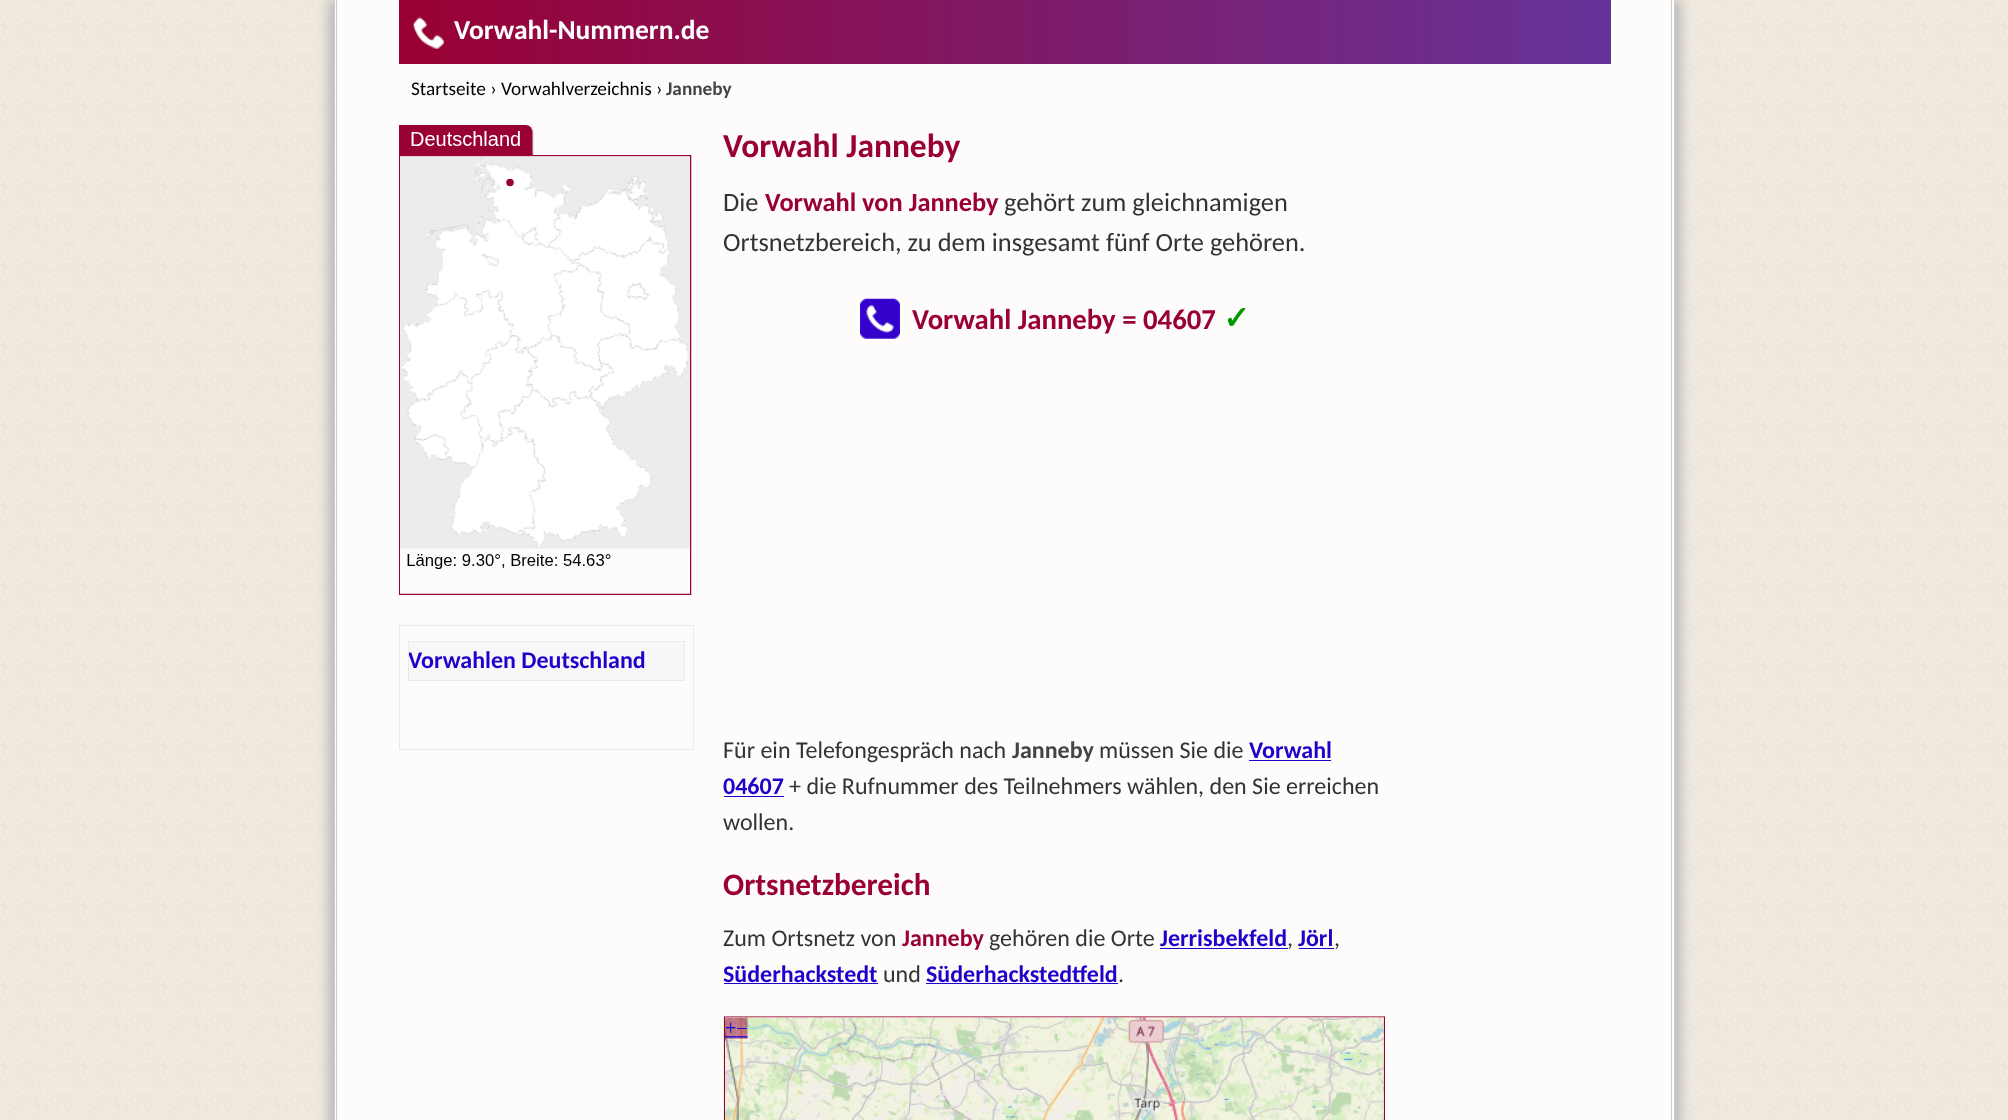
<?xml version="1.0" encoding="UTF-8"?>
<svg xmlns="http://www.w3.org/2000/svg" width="2008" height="1120">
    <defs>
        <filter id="blur1" x="-50%" y="-200%" width="200%" height="500%"><feGaussianBlur stdDeviation="6"/></filter>
        <linearGradient id="g1" gradientUnits="userSpaceOnUse" x1="399" y1="32" x2="1611" y2="32"><stop offset="0" stop-color="#990033"/><stop offset="1" stop-color="#663399"/></linearGradient>
        <clipPath id="clip1"><rect x="409" y="643" width="275" height="37"/></clipPath>
    </defs>
    <rect width="100%" height="100%" fill="#FFFFFF"/>
    <image x="0" y="0" width="2008" height="1120" href="img_01.png"/>
    <rect x="340" y="0" width="1341" height="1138" fill="#BBBBBB" filter="url(#blur1)"/>
    <rect x="328" y="0" width="1341" height="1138" fill="#BBBBBB" filter="url(#blur1)"/>
    <rect x="335" y="0" width="1339" height="1120" fill="#FDFCFA"/>
    <rect x="1671" y="0" width="1" height="1120" fill="#CCCCCC"/>
    <rect x="1674" y="0" width="1" height="1120" fill="#CCCCCC"/>
    <rect x="334" y="0" width="1" height="1120" fill="#CCCCCC"/>
    <rect x="336" y="0" width="1" height="1120" fill="#CCCCCC"/>
    <rect x="399" y="0" width="1212" height="64" fill="url(#g1)"/>
    <image x="413" y="17" width="31" height="32" href="img_02.png"/>
    <text x="454" y="39" font-family="Carlito" font-size="27.5" font-weight="700" fill="#FFFFFF">Vorwahl-Nummern.de</text>
    <text x="411" y="95" font-family="Carlito" font-size="19.25" fill="#000000">Startseite › Vorwahlverzeichnis ›</text>
    <text x="666" y="95" font-family="Carlito" font-size="19.25" font-weight="700" fill="#444444">Janneby</text>
    <image x="399" y="125" width="293" height="470" href="img_03.png"/>
    <rect x="399.5" y="625.5" width="294" height="124" fill="none" stroke="#E9EAEE"/>
    <rect x="408.5" y="641.5" width="276" height="39" fill="#F6F7F8" stroke="#E9EAEE"/>
    <g clip-path="url(#clip1)">
        <text x="408" y="668" font-family="Carlito" font-size="24" font-weight="700" fill="#2200CC">Vorwahlen Deutschland</text>
    </g>
    <text x="723" y="157" font-family="Carlito" font-size="33.5" font-weight="700" fill="#990033">Vorwahl Janneby</text>
    <text x="723" y="211" font-family="Carlito" font-size="26.4" fill="#333333">Die</text>
    <text x="765" y="211" font-family="Carlito" font-size="26.4" font-weight="700" fill="#990033">Vorwahl von Janneby</text>
    <text x="1004" y="211" font-family="Carlito" font-size="26.4" fill="#333333">gehört zum gleichnamigen</text>
    <text x="723" y="251" font-family="Carlito" font-size="26.4" fill="#333333">Ortsnetzbereich, zu dem insgesamt fünf Orte gehören.</text>
    <image x="860" y="298" width="40" height="41" href="img_04.png"/>
    <text x="912" y="329" font-family="Carlito" font-size="28.75" font-weight="700" fill="#990033">Vorwahl Janneby = 04607</text>
    <text x="1223" y="329" font-family="DejaVu Sans" font-size="32" font-weight="700" fill="#009900">✓</text>
    <text x="723" y="758" font-family="Carlito" font-size="24" fill="#333333">Für ein Telefongespräch nach</text>
    <text x="1012" y="758" font-family="Carlito" font-size="24" font-weight="700" fill="#444444">Janneby</text>
    <text x="1099" y="758" font-family="Carlito" font-size="24" fill="#333333">müssen Sie die</text>
    <text x="1249" y="758" font-family="Carlito" font-size="24" font-weight="700" fill="#2200CC">Vorwahl</text>
    <rect x="1249" y="760" width="82" height="1" fill="#2200CC"/>
    <text x="723" y="794" font-family="Carlito" font-size="24" font-weight="700" fill="#2200CC">04607</text>
    <rect x="724" y="796" width="60" height="1" fill="#2200CC"/>
    <text x="789" y="794" font-family="Carlito" font-size="24" fill="#333333">+ die Rufnummer des Teilnehmers wählen, den Sie erreichen</text>
    <text x="723" y="830" font-family="Carlito" font-size="24" fill="#333333">wollen.</text>
    <text x="723" y="895" font-family="Carlito" font-size="31.25" font-weight="700" fill="#990033">Ortsnetzbereich</text>
    <text x="723" y="946" font-family="Carlito" font-size="24" fill="#333333">Zum Ortsnetz von</text>
    <text x="902" y="946" font-family="Carlito" font-size="24" font-weight="700" fill="#990033">Janneby</text>
    <text x="989" y="946" font-family="Carlito" font-size="24" fill="#333333">gehören die Orte</text>
    <text x="1160" y="946" font-family="Carlito" font-size="24" font-weight="700" fill="#2200CC">Jerrisbekfeld</text>
    <rect x="1160" y="948" width="128" height="1" fill="#2200CC"/>
    <text x="1287" y="946" font-family="Carlito" font-size="24" fill="#333333">,</text>
    <text x="1298" y="946" font-family="Carlito" font-size="24" font-weight="700" fill="#2200CC">Jörl</text>
    <rect x="1299" y="948" width="35" height="1" fill="#2200CC"/>
    <text x="1334" y="946" font-family="Carlito" font-size="24" fill="#333333">,</text>
    <text x="723" y="982" font-family="Carlito" font-size="24" font-weight="700" fill="#2200CC">Süderhackstedt</text>
    <rect x="724" y="983" width="154" height="1" fill="#2200CC"/>
    <text x="883" y="982" font-family="Carlito" font-size="24" fill="#333333">und</text>
    <text x="926" y="982" font-family="Carlito" font-size="24" font-weight="700" fill="#2200CC">Süderhackstedtfeld</text>
    <rect x="926" y="983" width="192" height="1" fill="#2200CC"/>
    <text x="1118" y="982" font-family="Carlito" font-size="24" fill="#333333">.</text>
    <image x="723" y="1016" width="662" height="104" href="img_05.png"/>
</svg>
